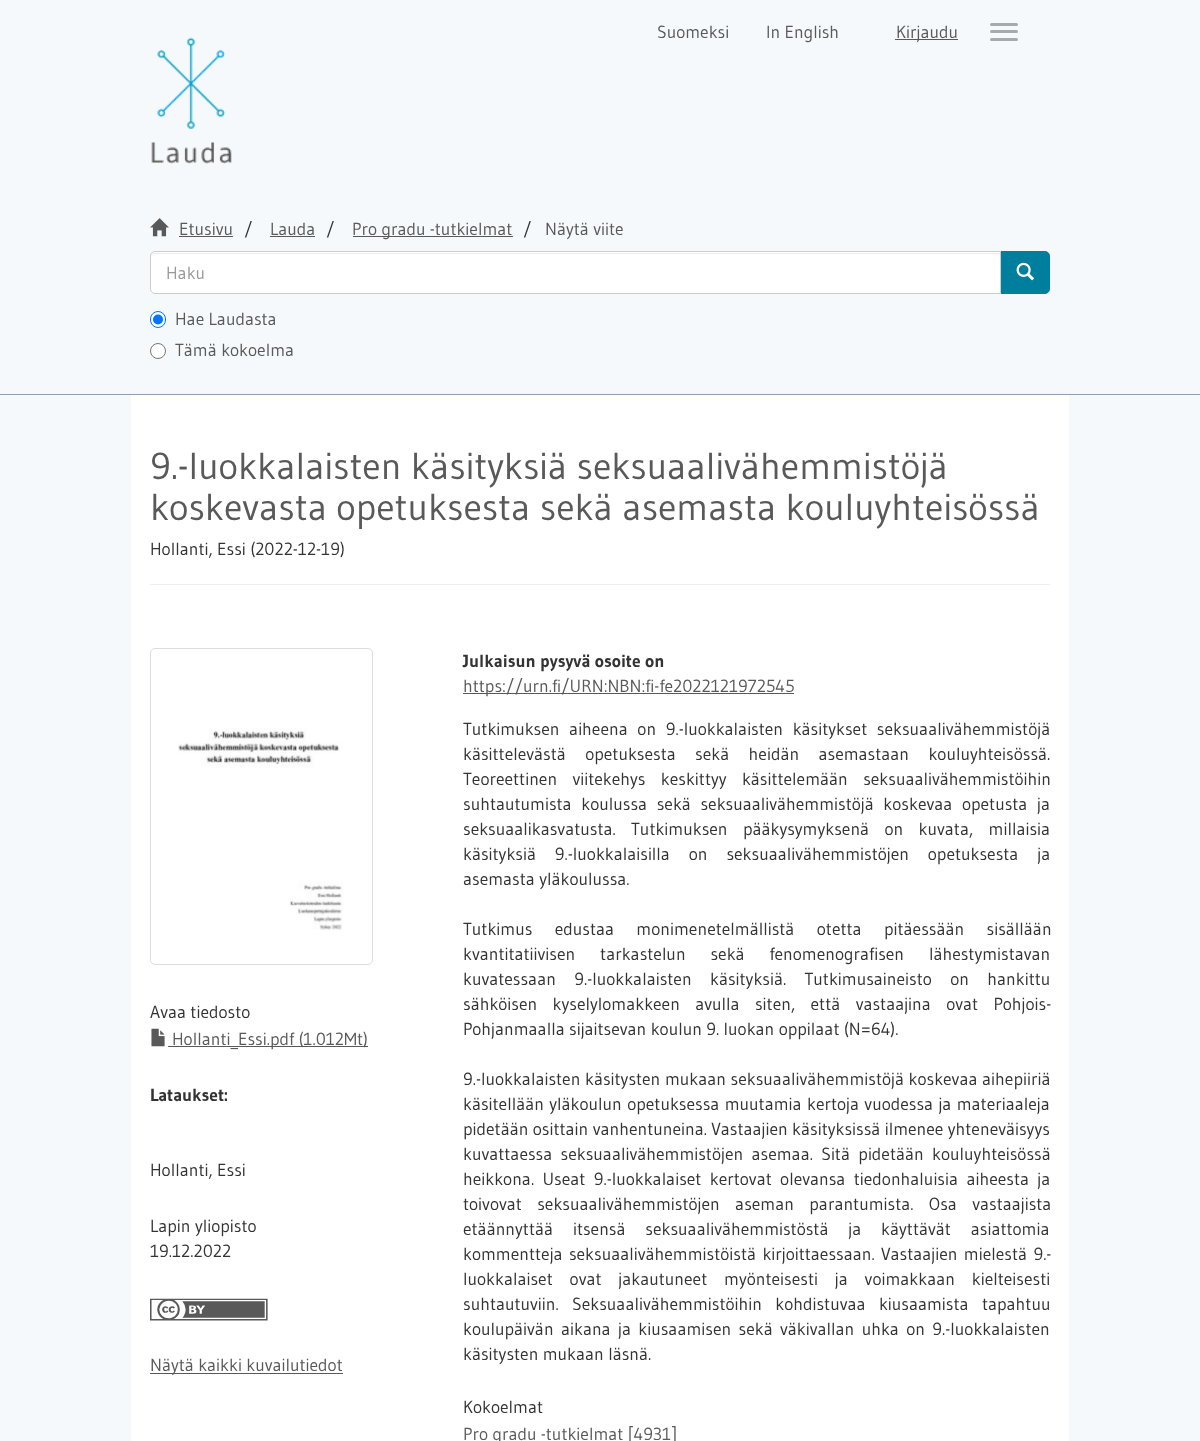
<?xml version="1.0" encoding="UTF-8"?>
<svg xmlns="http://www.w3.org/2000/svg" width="1200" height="1441">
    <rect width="100%" height="100%" fill="#F6F9FC"/>
    <text x="657" y="38" font-family="Gudea" font-size="17.5" fill="#595959">Suomeksi</text>
    <text x="766" y="38" font-family="Gudea" font-size="17.5" fill="#595959">In English</text>
    <rect x="895" y="39" width="63" height="1" fill="#595959"/>
    <text x="896" y="38" font-family="Gudea" font-size="17.5" fill="#595959">Kirjaudu</text>
    <rect x="990" y="23" width="28" height="3" rx="1.5" fill="#A8A9AB"/>
    <rect x="990" y="30" width="28" height="3" rx="1.5" fill="#A8A9AB"/>
    <rect x="990" y="38" width="28" height="3" rx="1.5" fill="#A8A9AB"/>
    <image x="151" y="37" width="81" height="127" href="img_01.png"/>
    <rect x="0" y="394" width="1200" height="1" fill="#8B9EB2"/>
    <image x="150" y="218" width="19" height="19" href="img_02.png"/>
    <text x="179" y="235" font-family="Gudea" font-size="17.5" fill="#595959">Etusivu</text>
    <rect x="179" y="236" width="54" height="1" fill="#595959"/>
    <text x="244" y="235" font-family="Gudea" font-size="17.5" fill="#333333">/</text>
    <text x="270" y="235" font-family="Gudea" font-size="17.5" fill="#595959">Lauda</text>
    <rect x="270" y="236" width="45" height="1" fill="#595959"/>
    <text x="326" y="235" font-family="Gudea" font-size="17.5" fill="#333333">/</text>
    <rect x="353" y="236" width="160" height="1" fill="#595959"/>
    <text x="352" y="235" font-family="Gudea" font-size="17.5" fill="#595959">Pro gradu -tutkielmat</text>
    <text x="523" y="235" font-family="Gudea" font-size="17.5" fill="#333333">/</text>
    <text x="545" y="235" font-family="Gudea" font-size="17.5" fill="#595959">Näytä viite</text>
    <path d="M 1000.5 251.5 H 1045 C 1047.5 251.5 1049.5 253.5 1049.5 256 V 289 C 1049.5 291.5 1047.5 293.5 1045 293.5 H 1000.5 Z" fill="#007E9E" stroke="#007E9E"/>
    <path d="M 155 251 H 1001 V 294 H 155 C 152 294 150 292 150 289 V 256 C 150 253 152 251 155 251 Z" fill="#FFFFFF"/>
    <path d="M 155 254 H 1000 V 253 H 155 C 152 253 151 255 151 258 C 151 255 153 254 155 254 Z" fill="#ECECEC"/>
    <path d="M 155 251.5 H 1000.5 V 293.5 H 155 C 152.5 293.5 150.5 291.5 150.5 289 V 256 C 150.5 253.5 152.5 251.5 155 251.5 Z" fill="none" stroke="#CCCCCC"/>
    <text x="166" y="279" font-family="Gudea" font-size="17.5" fill="#999999">Haku</text>
    <image x="1016" y="262" width="18" height="19" href="img_03.png"/>
    <rect x="150.5" y="311.5" width="15" height="16" rx="7.5" fill="#FFFFFF" stroke="#0075FF"/>
    <circle cx="158" cy="319.5" r="5" fill="#0075FF"/>
    <text x="175" y="325" font-family="Gudea" font-size="17.5" fill="#595959">Hae Laudasta</text>
    <circle cx="158" cy="351" r="7.5" fill="#FFFFFF" stroke="#767676"/>
    <text x="175" y="356" font-family="Gudea" font-size="17.5" fill="#595959">Tämä kokoelma</text>
    <rect x="131" y="395" width="938" height="1046" fill="#FFFFFF"/>
    <text font-family="Gudea" font-size="37.5" fill="#595959">
        <tspan x="150" y="479">9.-luokkalaisten käsityksiä seksuaalivähemmistöjä</tspan>
        <tspan x="150" y="520">koskevasta opetuksesta sekä asemasta kouluyhteisössä</tspan>
    </text>
    <text x="150" y="555" font-family="Gudea" font-size="17.5" fill="#333333">Hollanti, Essi (2022-12-19)</text>
    <rect x="150" y="584" width="900" height="1" fill="#EEEEEE"/>
    <rect x="150.5" y="648.5" width="222" height="316" rx="4.5" fill="none" stroke="#DDDDDD"/>
    <image x="178" y="728" width="165" height="202" href="img_04.png"/>
    <text x="150" y="1018" font-family="Gudea" font-size="17.5" fill="#333333">Avaa tiedosto</text>
    <image x="151" y="1028" width="14" height="19" href="img_05.png"/>
    <rect x="168" y="1046" width="200" height="1" fill="#595959"/>
    <text x="172" y="1045" font-family="Gudea" font-size="17.5" fill="#595959">Hollanti_Essi.pdf (1.012Mt)</text>
    <text x="150" y="1101" font-family="Gudea" font-size="17.5" font-weight="700" fill="#333333">Lataukset:</text>
    <text x="150" y="1176" font-family="Gudea" font-size="17.5" fill="#333333">Hollanti, Essi</text>
    <text font-family="Gudea" font-size="17.5" fill="#333333">
        <tspan x="150" y="1232">Lapin yliopisto</tspan>
        <tspan x="150" y="1257">19.12.2022</tspan>
    </text>
    <text x="150" y="1321" font-family="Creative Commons" font-size="26.25" fill="#595959">2</text>
    <rect x="150" y="1373" width="193" height="1" fill="#595959"/>
    <text x="150" y="1371" font-family="Gudea" font-size="17.5" fill="#595959">Näytä kaikki kuvailutiedot</text>
    <text x="463" y="667" font-family="Gudea" font-size="17.5" font-weight="700" fill="#333333">Julkaisun pysyvä osoite on</text>
    <rect x="463" y="693" width="331" height="1" fill="#595959"/>
    <text x="463" y="692" font-family="Gudea" font-size="17.5" fill="#595959">https://urn.fi/URN:NBN:fi-fe2022121972545</text>
    <text font-family="Gudea" font-size="17.5" fill="#333333">
        <tspan x="463" y="735" word-spacing="5.25">Tutkimuksen aiheena on 9.-luokkalaisten käsitykset seksuaalivähemmistöjä</tspan>
        <tspan x="463" y="760" word-spacing="15">käsittelevästä opetuksesta sekä heidän asemastaan kouluyhteisössä.</tspan>
        <tspan x="463" y="785" word-spacing="11">Teoreettinen viitekehys keskittyy käsittelemään seksuaalivähemmistöihin</tspan>
        <tspan x="463" y="810" word-spacing="5.25">suhtautumista koulussa sekä seksuaalivähemmistöjä koskevaa opetusta ja</tspan>
        <tspan x="463" y="835" word-spacing="11">seksuaalikasvatusta. Tutkimuksen pääkysymyksenä on kuvata, millaisia</tspan>
        <tspan x="463" y="860" word-spacing="14.5">käsityksiä 9.-luokkalaisilla on seksuaalivähemmistöjen opetuksesta ja</tspan>
        <tspan x="463" y="885">asemasta yläkoulussa.</tspan>
    </text>
    <text font-family="Gudea" font-size="17.5" fill="#333333">
        <tspan x="463" y="935" word-spacing="18">Tutkimus edustaa monimenetelmällistä otetta pitäessään sisällään</tspan>
        <tspan x="463" y="960" word-spacing="20.5">kvantitatiivisen tarkastelun sekä fenomenografisen lähestymistavan</tspan>
        <tspan x="463" y="985" word-spacing="14">kuvatessaan 9.-luokkalaisten käsityksiä. Tutkimusaineisto on hankittu</tspan>
        <tspan x="463" y="1010" word-spacing="11">sähköisen kyselylomakkeen avulla siten, että vastaajina ovat Pohjois-</tspan>
        <tspan x="463" y="1035">Pohjanmaalla sijaitsevan koulun 9. luokan oppilaat (N=64).</tspan>
    </text>
    <text font-family="Gudea" font-size="17.5" fill="#333333">
        <tspan x="463" y="1085" word-spacing="0.25">9.-luokkalaisten käsitysten mukaan seksuaalivähemmistöjä koskevaa aihepiiriä</tspan>
        <tspan x="463" y="1110" word-spacing="1">käsitellään yläkoulun opetuksessa muutamia kertoja vuodessa ja materiaaleja</tspan>
        <tspan x="463" y="1135">pidetään osittain vanhentuneina. Vastaajien käsityksissä ilmenee yhteneväisyys</tspan>
        <tspan x="463" y="1160" word-spacing="4">kuvattaessa seksuaalivähemmistöjen asemaa. Sitä pidetään kouluyhteisössä</tspan>
        <tspan x="463" y="1185" word-spacing="4">heikkona. Useat 9.-luokkalaiset kertovat olevansa tiedonhaluisia aiheesta ja</tspan>
        <tspan x="463" y="1210" word-spacing="11">toivovat seksuaalivähemmistöjen aseman parantumista. Osa vastaajista</tspan>
        <tspan x="463" y="1235" word-spacing="15.5">etäännyttää itsensä seksuaalivähemmistöstä ja käyttävät asiattomia</tspan>
        <tspan x="463" y="1260" word-spacing="2">kommentteja seksuaalivähemmistöistä kirjoittaessaan. Vastaajien mielestä 9.-</tspan>
        <tspan x="463" y="1285" word-spacing="12.5">luokkalaiset ovat jakautuneet myönteisesti ja voimakkaan kielteisesti</tspan>
        <tspan x="463" y="1310" word-spacing="9">suhtautuviin. Seksuaalivähemmistöihin kohdistuvaa kiusaamista tapahtuu</tspan>
        <tspan x="463" y="1335" word-spacing="3">koulupäivän aikana ja kiusaamisen sekä väkivallan uhka on 9.-luokkalaisten</tspan>
        <tspan x="463" y="1360">käsitysten mukaan läsnä.</tspan>
    </text>
    <text x="463" y="1413" font-family="Gudea" font-size="17.5" fill="#333333">Kokoelmat</text>
    <text x="463" y="1440" font-family="Gudea" font-size="17.5" fill="#595959">Pro gradu -tutkielmat [4931]</text>
</svg>
